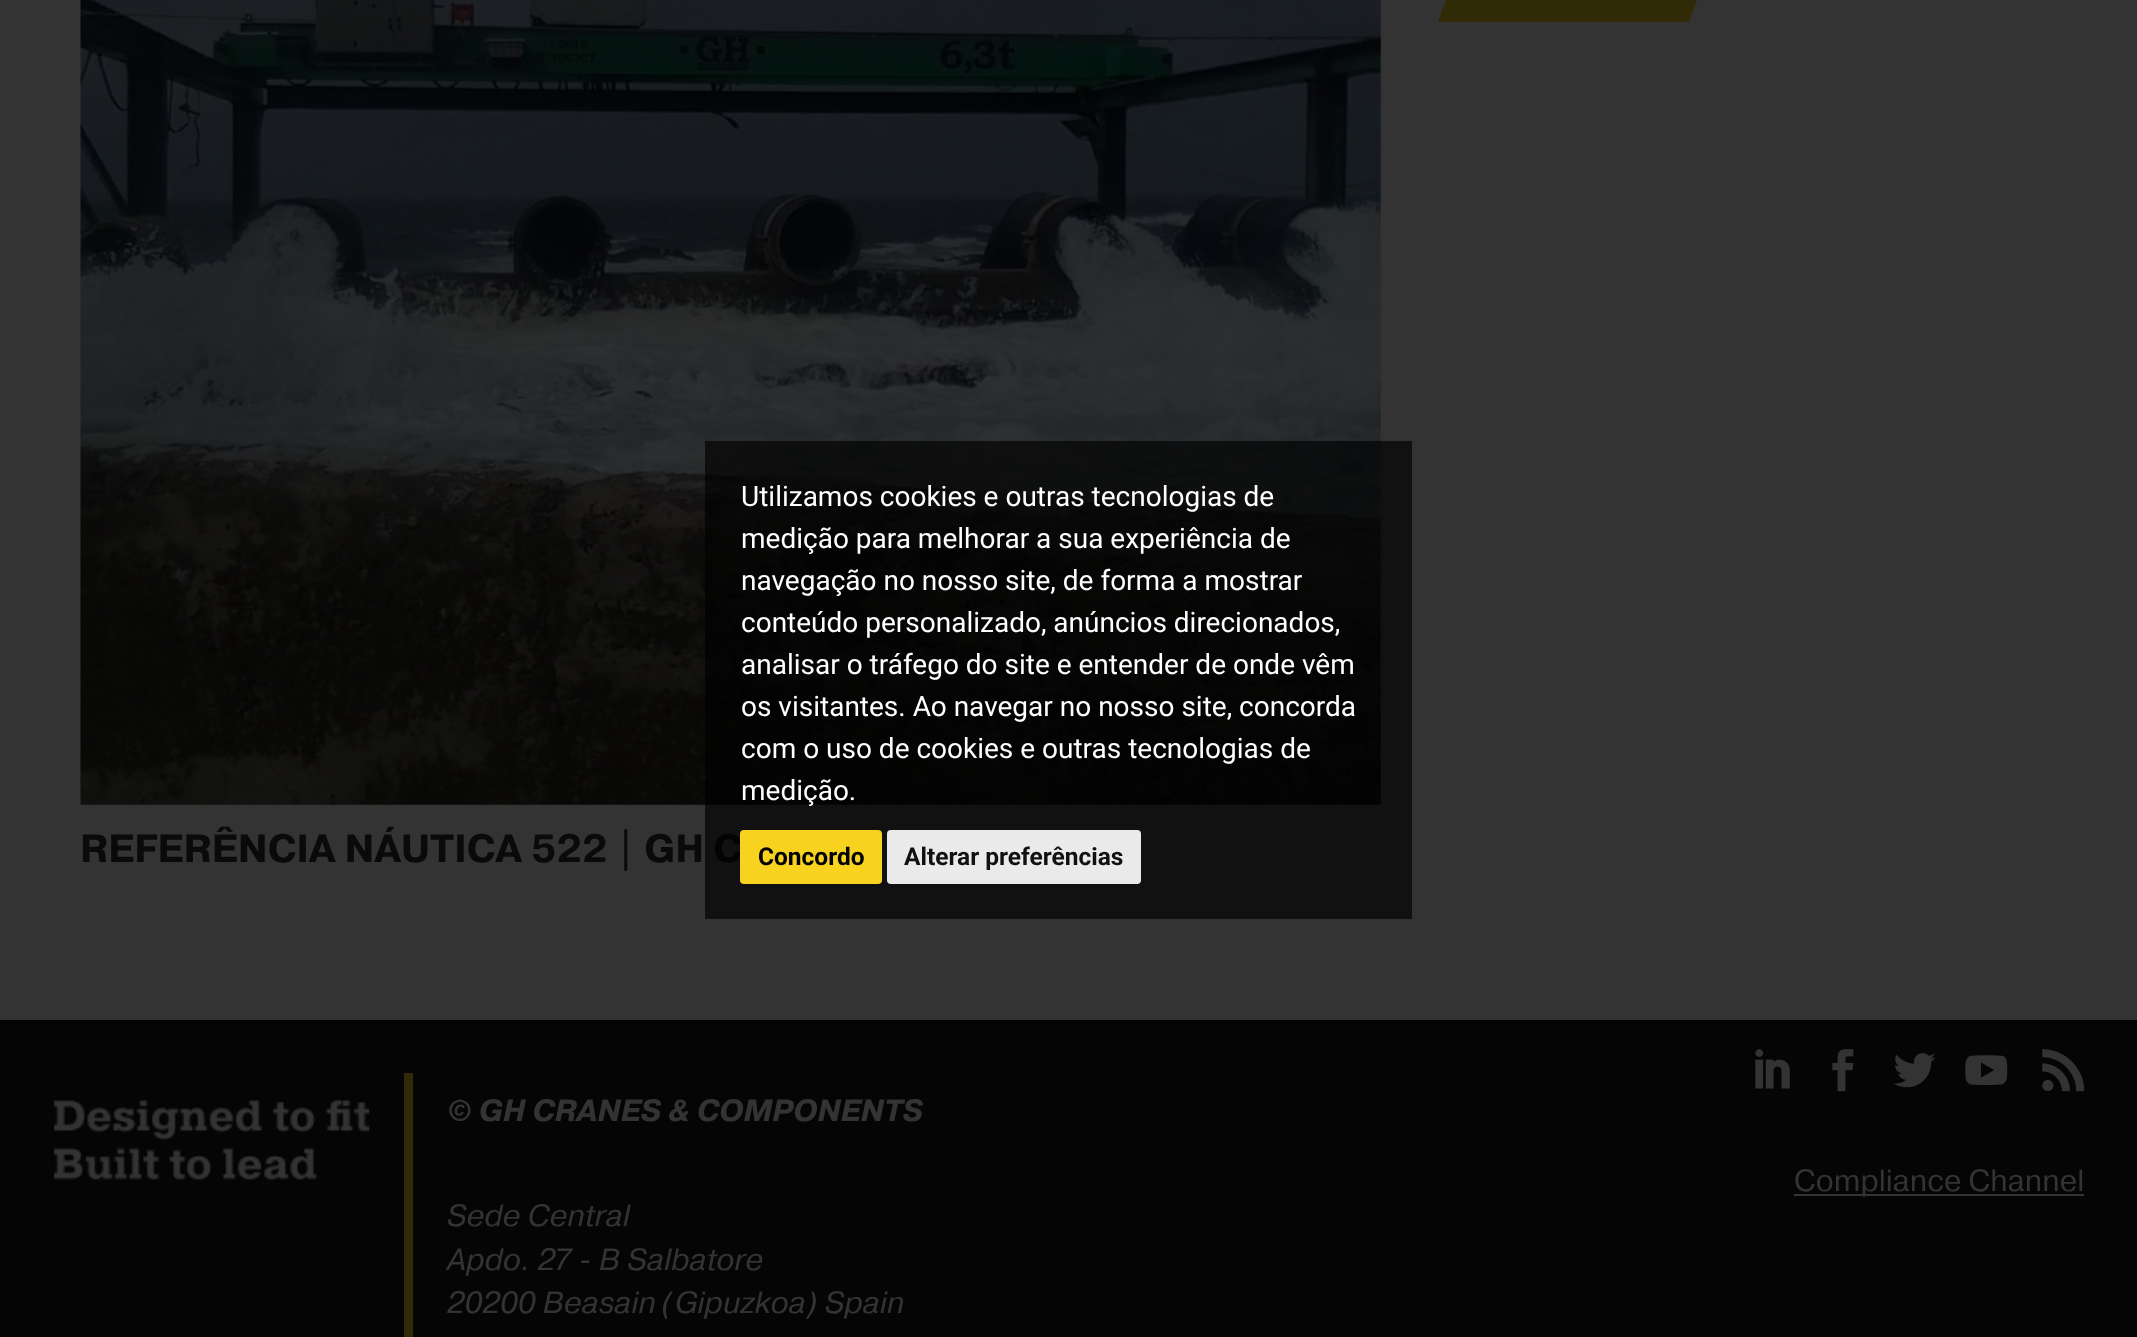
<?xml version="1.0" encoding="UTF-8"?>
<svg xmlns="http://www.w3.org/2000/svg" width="2137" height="1337">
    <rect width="100%" height="100%" fill="#333333"/>
    <path d="M 1465 -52 H 1716 L 1689 22 H 1438 Z" fill="#312A06"/>
    <image x="80" y="0" width="1301" height="805" href="img_01.png"/>
    <text x="80" y="862" font-family="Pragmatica" font-size="39.25" font-weight="700" fill="#0A0A0A">REFERÊNCIA NÁUTICA 522 | GH C</text>
    <rect x="705" y="441" width="707" height="478" fill="#000000" fill-opacity="0.65"/>
    <text font-family="Roboto" font-size="28" fill="#FFFFFF">
        <tspan x="741" y="506">Utilizamos cookies e outras tecnologias de</tspan>
        <tspan x="741" y="548">medição para melhorar a sua experiência de</tspan>
        <tspan x="741" y="590">navegação no nosso site, de forma a mostrar</tspan>
        <tspan x="741" y="632">conteúdo personalizado, anúncios direcionados,</tspan>
        <tspan x="741" y="674">analisar o tráfego do site e entender de onde vêm</tspan>
        <tspan x="741" y="716">os visitantes. Ao navegar no nosso site, concorda</tspan>
        <tspan x="741" y="758">com o uso de cookies e outras tecnologias de</tspan>
        <tspan x="741" y="800">medição.</tspan>
    </text>
    <rect x="740" y="830" width="142" height="54" rx="4" fill="#F7D320"/>
    <text x="758" y="865" font-family="Roboto" font-size="24.5" font-weight="700" fill="#000000">Concordo</text>
    <rect x="887" y="830" width="254" height="54" rx="4" fill="#EAEAEA"/>
    <text x="904" y="865" font-family="Roboto" font-size="24.5" font-weight="700" fill="#111111">Alterar preferências</text>
    <rect x="0" y="1020" width="2137" height="317" fill="#050505"/>
    <image x="1755" y="1049" width="35" height="40" href="img_02.png"/>
    <image x="1832" y="1049" width="22" height="43" href="img_03.png"/>
    <image x="1893" y="1053" width="43" height="35" href="img_04.png"/>
    <image x="1965" y="1055" width="43" height="31" href="img_05.png"/>
    <image x="2042" y="1049" width="43" height="43" href="img_06.png"/>
    <image x="54" y="1100" width="316" height="80" href="img_07.png"/>
    <rect x="404" y="1073" width="9" height="264" fill="#312A06"/>
    <text x="447" y="1121" font-family="Pragmatica" font-size="30.6" font-weight="700" font-style="italic" fill="#333333">© GH CRANES &amp; COMPONENTS</text>
    <text font-family="Pragmatica" font-size="30.6" font-style="italic" fill="#333333">
        <tspan x="447" y="1226">Sede Central</tspan>
        <tspan x="447" y="1270">Apdo. 27 - B Salbatore</tspan>
        <tspan x="447" y="1313">20200 Beasain (Gipuzkoa) Spain</tspan>
    </text>
    <rect x="1794" y="1194" width="290" height="2" fill="#333333"/>
    <text x="1794" y="1191" font-family="Pragmatica" font-size="30.6" fill="#333333">Compliance Channel</text>
</svg>
